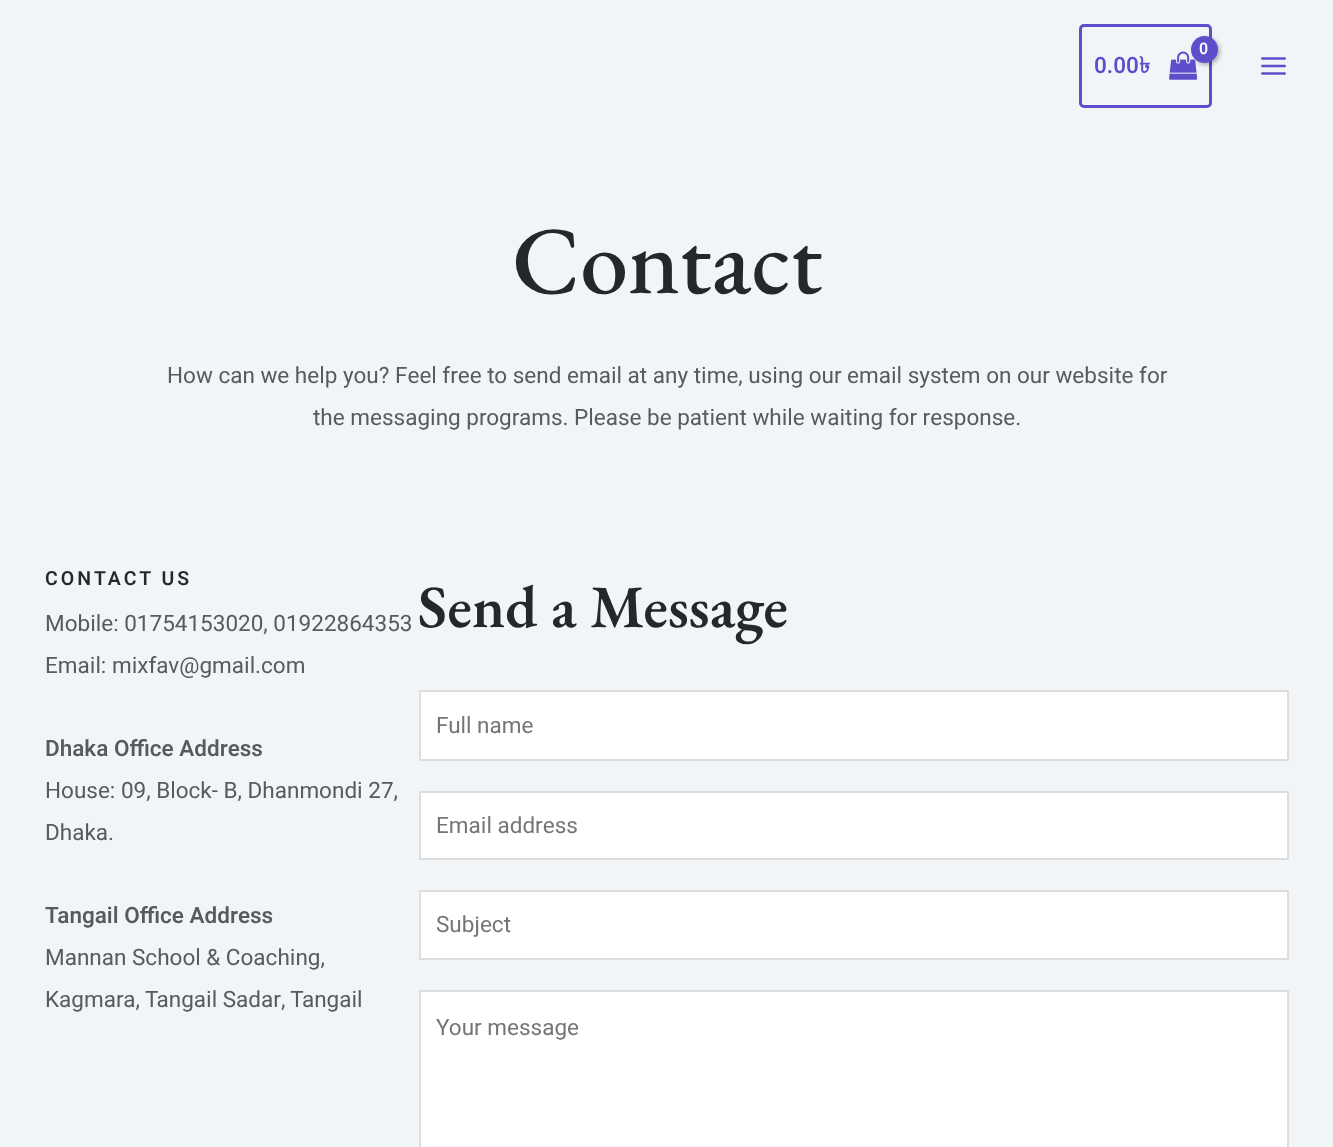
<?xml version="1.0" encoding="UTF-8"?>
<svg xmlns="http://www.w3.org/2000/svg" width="1333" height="1147">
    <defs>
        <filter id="blur1" x="-50%" y="-200%" width="200%" height="500%"><feGaussianBlur stdDeviation="2"/></filter>
    </defs>
    <rect width="100%" height="100%" fill="#F2F5F7"/>
    <rect x="1080.5" y="25.5" width="130" height="81" rx="3.5" fill="none" stroke="#5F4ECB" stroke-width="3"/>
    <image x="1169" y="51" width="28" height="29" href="img_01.png"/>
    <rect x="1193" y="38" width="27" height="27" rx="13.5" fill="#000000" fill-opacity="0.3" filter="url(#blur1)"/>
    <circle cx="1204.5" cy="49.5" r="13.5" fill="#5F4ECB"/>
    <text x="1199" y="54" font-family="Heebo" font-size="16" font-weight="600" letter-spacing="-1" fill="#FFFFFF">0</text>
    <text x="1094" y="73" font-family="Heebo" font-size="22.5" font-weight="600" fill="#5F4ECB">0.00</text>
    <text x="1139" y="73" font-family="Lohit Bengali" font-size="22.5" font-weight="700" fill="#5F4ECB">৳</text>
    <image x="1261" y="57" width="25" height="18" href="img_02.png"/>
    <text x="512" y="293" font-family="EB Garamond" font-size="96" font-weight="500" fill="#25272D">Contact</text>
    <text x="167" y="383" font-family="Heebo" font-size="22.5" fill="#565A61">How can we help you? Feel free to send email at any time, using our email system on our website for</text>
    <text x="313" y="425" font-family="Heebo" font-size="22.5" fill="#565A61">the messaging programs. Please be patient while waiting for response.</text>
    <text x="45" y="585" font-family="Heebo" font-size="19.5" font-weight="600" letter-spacing="3" fill="#25272D">CONTACT US</text>
    <text font-family="Heebo" font-size="22.5" fill="#565A61">
        <tspan x="45" y="631">Mobile: 01754153020, 01922864353</tspan>
        <tspan x="45" y="673">Email: mixfav@gmail.com</tspan>
    </text>
    <text x="45" y="756" font-family="Heebo" font-size="22.5" font-weight="600" fill="#565A61">Dhaka Office Address</text>
    <text font-family="Heebo" font-size="22.5" fill="#565A61">
        <tspan x="45" y="798">House: 09, Block- B, Dhanmondi 27,</tspan>
        <tspan x="45" y="840">Dhaka.</tspan>
    </text>
    <text x="45" y="923" font-family="Heebo" font-size="22.5" font-weight="600" fill="#565A61">Tangail Office Address</text>
    <text font-family="Heebo" font-size="22.5" fill="#565A61">
        <tspan x="45" y="965">Mannan School &amp; Coaching,</tspan>
        <tspan x="45" y="1007">Kagmara, Tangail Sadar, Tangail</tspan>
    </text>
    <text x="418" y="627" font-family="EB Garamond" font-size="60" font-weight="600" fill="#25272D">Send a Message</text>
    <rect x="420" y="691" width="868" height="69" fill="#FFFFFF" stroke="#DDDDDD" stroke-width="2"/>
    <text x="436" y="733" font-family="Heebo" font-size="22.5" fill="#757575">Full name</text>
    <rect x="420" y="792" width="868" height="67" fill="#FFFFFF" stroke="#DDDDDD" stroke-width="2"/>
    <text x="436" y="833" font-family="Heebo" font-size="22.5" fill="#757575">Email address</text>
    <rect x="420" y="891" width="868" height="68" fill="#FFFFFF" stroke="#DDDDDD" stroke-width="2"/>
    <text x="436" y="932" font-family="Heebo" font-size="22.5" fill="#757575">Subject</text>
    <rect x="420" y="991" width="868" height="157" fill="#FFFFFF" stroke="#DDDDDD" stroke-width="2"/>
    <text x="436" y="1035" font-family="Heebo" font-size="22.5" fill="#757575">Your message</text>
</svg>
